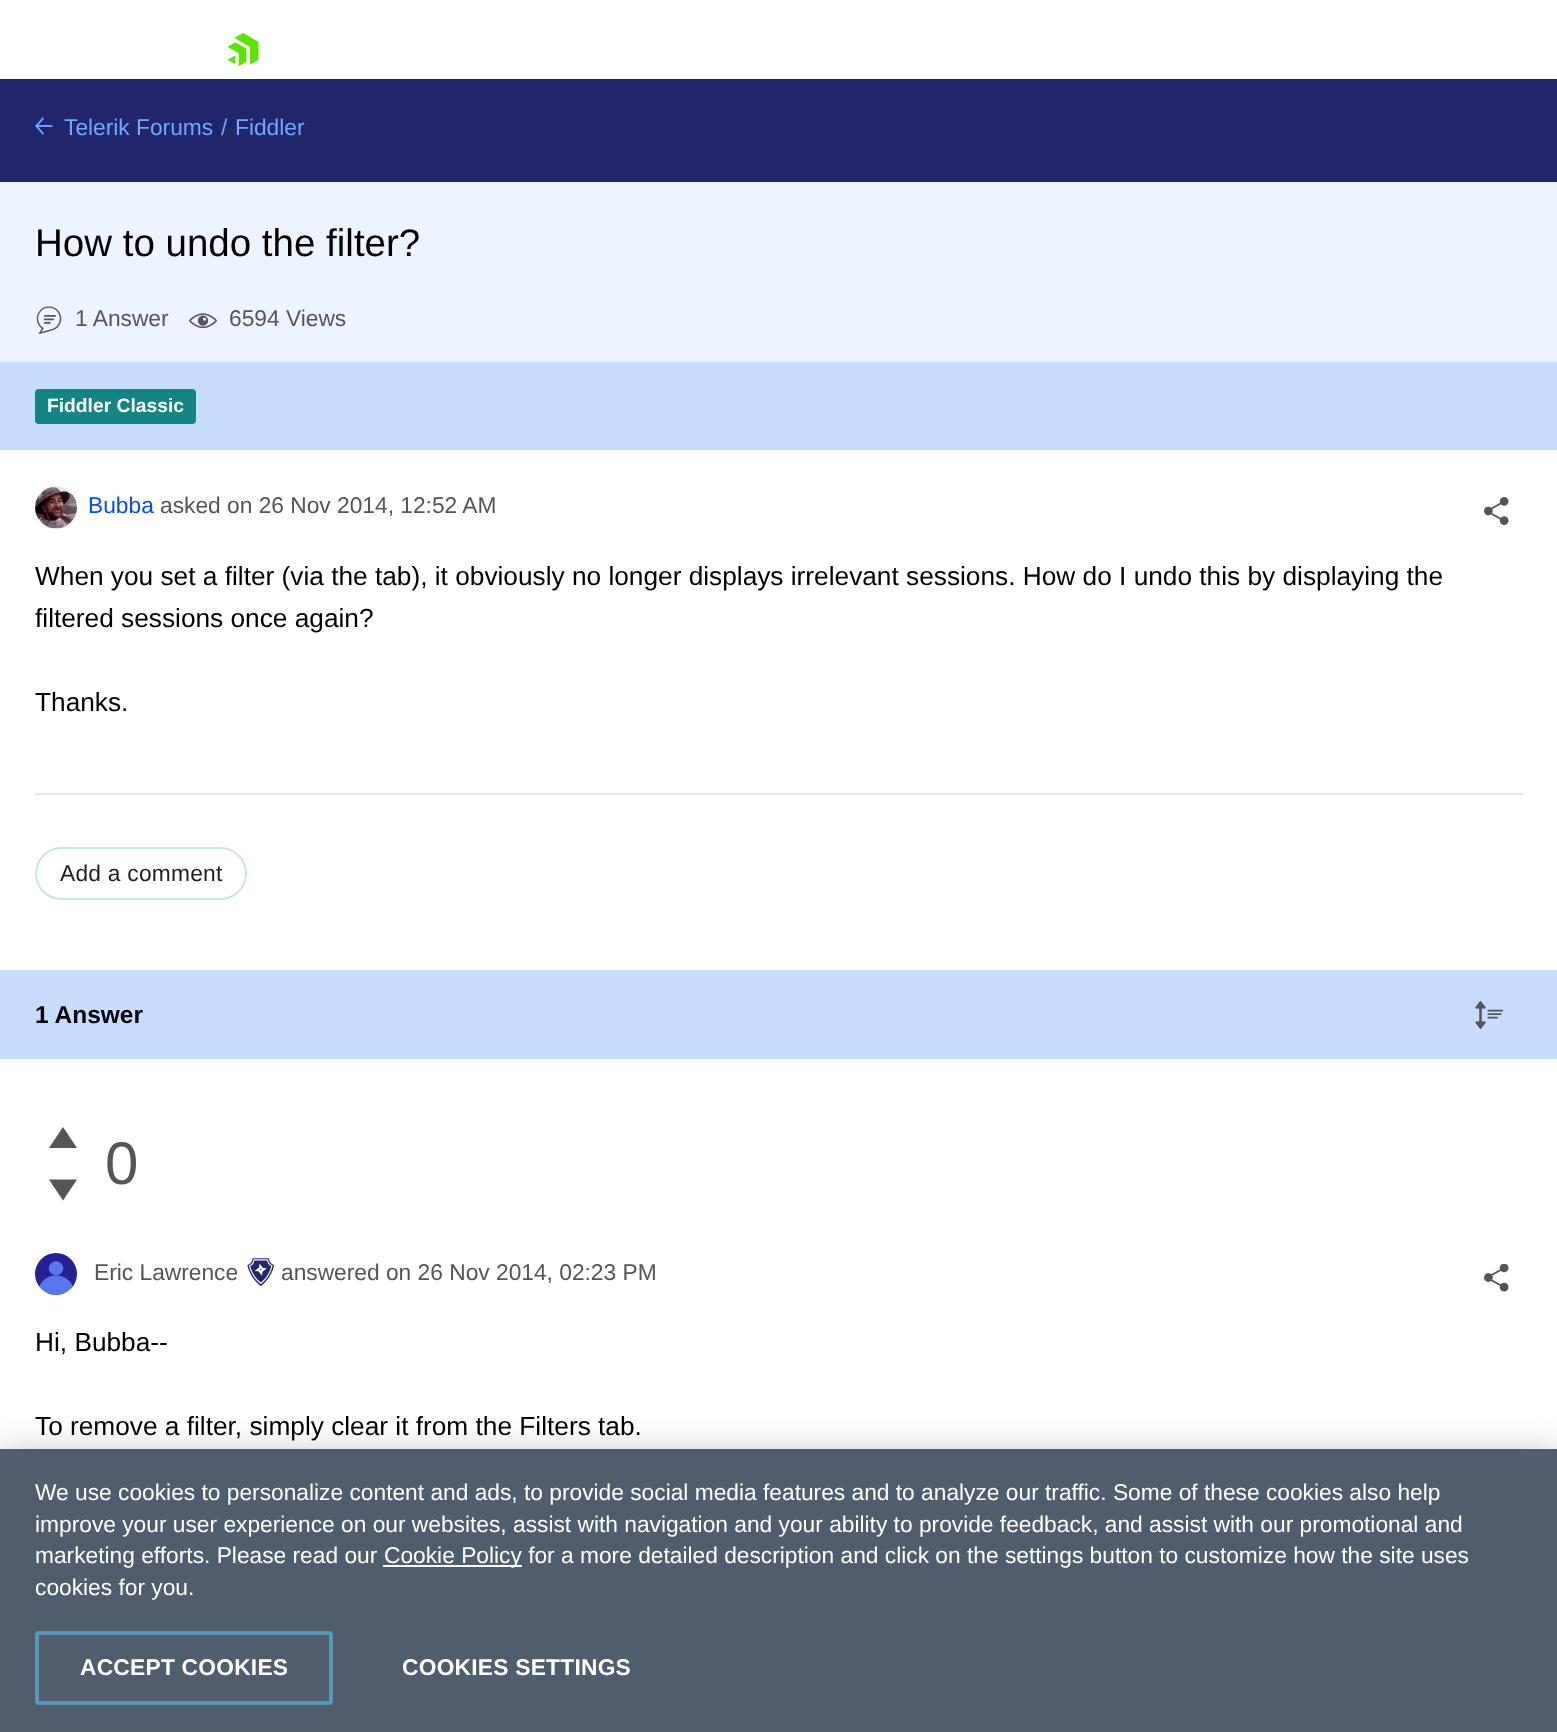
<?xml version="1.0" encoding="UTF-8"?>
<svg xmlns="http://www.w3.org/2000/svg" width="1557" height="1732">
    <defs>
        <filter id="blur1" x="-50%" y="-200%" width="200%" height="500%"><feGaussianBlur stdDeviation="16"/></filter>
    </defs>
    <rect width="100%" height="100%" fill="#FFFFFF"/>
    <image x="228" y="33" width="31" height="34" href="img_01.png"/>
    <rect x="0" y="79" width="1557" height="103" fill="#20256C"/>
    <image x="35" y="117" width="18" height="18" href="img_02.png"/>
    <text x="64" y="135" font-family="Liberation Sans" font-size="22.75" fill="#71A6FF">Telerik Forums</text>
    <text x="221" y="135" font-family="Liberation Sans" font-size="22.75" fill="#71A6FF">/</text>
    <text x="235" y="135" font-family="Liberation Sans" font-size="22.75" fill="#71A6FF">Fiddler</text>
    <rect x="0" y="182" width="1557" height="180" fill="#EDF4FF"/>
    <text x="35" y="256" font-family="Liberation Sans" font-size="38.5" fill="#000000">How to undo the filter?</text>
    <image x="36" y="306" width="26" height="28" href="img_03.png"/>
    <text x="75" y="326" font-family="Liberation Sans" font-size="22.75" fill="#555555">1 Answer</text>
    <image x="189" y="313" width="28" height="16" href="img_04.png"/>
    <text x="229" y="326" font-family="Liberation Sans" font-size="22.75" fill="#555555">6594 Views</text>
    <rect x="0" y="362" width="1557" height="88" fill="#C7DCFF"/>
    <rect x="36" y="390" width="159" height="33" rx="3" fill="#148484" stroke="#148484" stroke-width="2"/>
    <text x="47" y="412" font-family="Liberation Sans" font-size="19.25" font-weight="700" fill="#FFFFFF">Fiddler Classic</text>
    <image x="35" y="486" width="42" height="43" href="img_05.png"/>
    <text x="88" y="513" font-family="Liberation Sans" font-size="22.75" fill="#054BFF">Bubba</text>
    <text x="160" y="513" font-family="Liberation Sans" font-size="22.75" fill="#555555">asked on 26 Nov 2014, 12:52 AM</text>
    <image x="1484" y="497" width="25" height="28" href="img_06.png"/>
    <text font-family="Liberation Sans" font-size="26.25" fill="#000000">
        <tspan x="35" y="585">When you set a filter (via the tab), it obviously no longer displays irrelevant sessions. How do I undo this by displaying the</tspan>
        <tspan x="35" y="627">filtered sessions once again?</tspan>
    </text>
    <text x="35" y="711" font-family="Liberation Sans" font-size="26.25" fill="#000000">Thanks.</text>
    <rect x="35" y="793" width="1488" height="2" fill="#E5E5E5"/>
    <rect x="36" y="848" width="210" height="51" rx="25.5" fill="none" stroke="#C8E2F2" stroke-width="2"/>
    <text x="60" y="881" font-family="Liberation Sans" font-size="22.75" letter-spacing="0.25" fill="#1F1F1F">Add a comment</text>
    <rect x="0" y="970" width="1557" height="89" fill="#C7DCFF"/>
    <text x="35" y="1023" font-family="Liberation Sans" font-size="24.5" font-weight="700" fill="#000000">1 Answer</text>
    <image x="1475" y="1001" width="28" height="28" href="img_07.png"/>
    <path d="M 77 1148 H 49 L 63 1127 Z" fill="#555555"/>
    <text x="105" y="1184" font-family="Liberation Sans" font-size="60" fill="#555555">0</text>
    <path d="M 49 1179.5 H 77 L 63 1200.5 Z" fill="#555555"/>
    <image x="35" y="1253" width="42" height="42" href="img_08.png"/>
    <text x="94" y="1280" font-family="Liberation Sans" font-size="22.75" fill="#555555">Eric Lawrence</text>
    <image x="247" y="1258" width="28" height="28" href="img_09.png"/>
    <text x="281" y="1280" font-family="Liberation Sans" font-size="22.75" fill="#555555">answered on 26 Nov 2014, 02:23 PM</text>
    <image x="1484" y="1264" width="25" height="28" href="img_10.png"/>
    <text x="35" y="1351" font-family="Liberation Sans" font-size="26.25" fill="#000000">Hi, Bubba--</text>
    <text x="35" y="1435" font-family="Liberation Sans" font-size="26.25" fill="#000000">To remove a filter, simply clear it from the Filters tab.</text>
    <rect x="0" y="1449" width="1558" height="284" fill="#000000" fill-opacity="0.2" filter="url(#blur1)"/>
    <rect x="0" y="1449" width="1557" height="283" fill="#4F5D6C"/>
    <text font-family="Liberation Sans" font-size="22.75" fill="#FFFFFF">
        <tspan x="35" y="1500">We use cookies to personalize content and ads, to provide social media features and to analyze our traffic. Some of these cookies also help</tspan>
        <tspan x="35" y="1532">improve your user experience on our websites, assist with navigation and your ability to provide feedback, and assist with our promotional and</tspan>
        <tspan x="35" y="1563">marketing efforts. Please read our</tspan>
    </text>
    <rect x="383" y="1565" width="139" height="2" fill="#FFFFFF"/>
    <text x="384" y="1563" font-family="Liberation Sans" font-size="22.75" fill="#FFFFFF">Cookie Policy for a more detailed description and click on the settings button to customize how the site uses</text>
    <text x="35" y="1595" font-family="Liberation Sans" font-size="22.75" fill="#FFFFFF">cookies for you.</text>
    <rect x="37" y="1633" width="294" height="70" rx="2" fill="none" stroke="#5699B6" stroke-width="4"/>
    <text x="80" y="1675" font-family="Liberation Sans" font-size="22.75" font-weight="700" letter-spacing="0.25" fill="#FFFFFF">ACCEPT COOKIES</text>
    <text x="402" y="1675" font-family="Liberation Sans" font-size="22.75" font-weight="700" letter-spacing="0.25" fill="#FFFFFF">COOKIES SETTINGS</text>
</svg>
